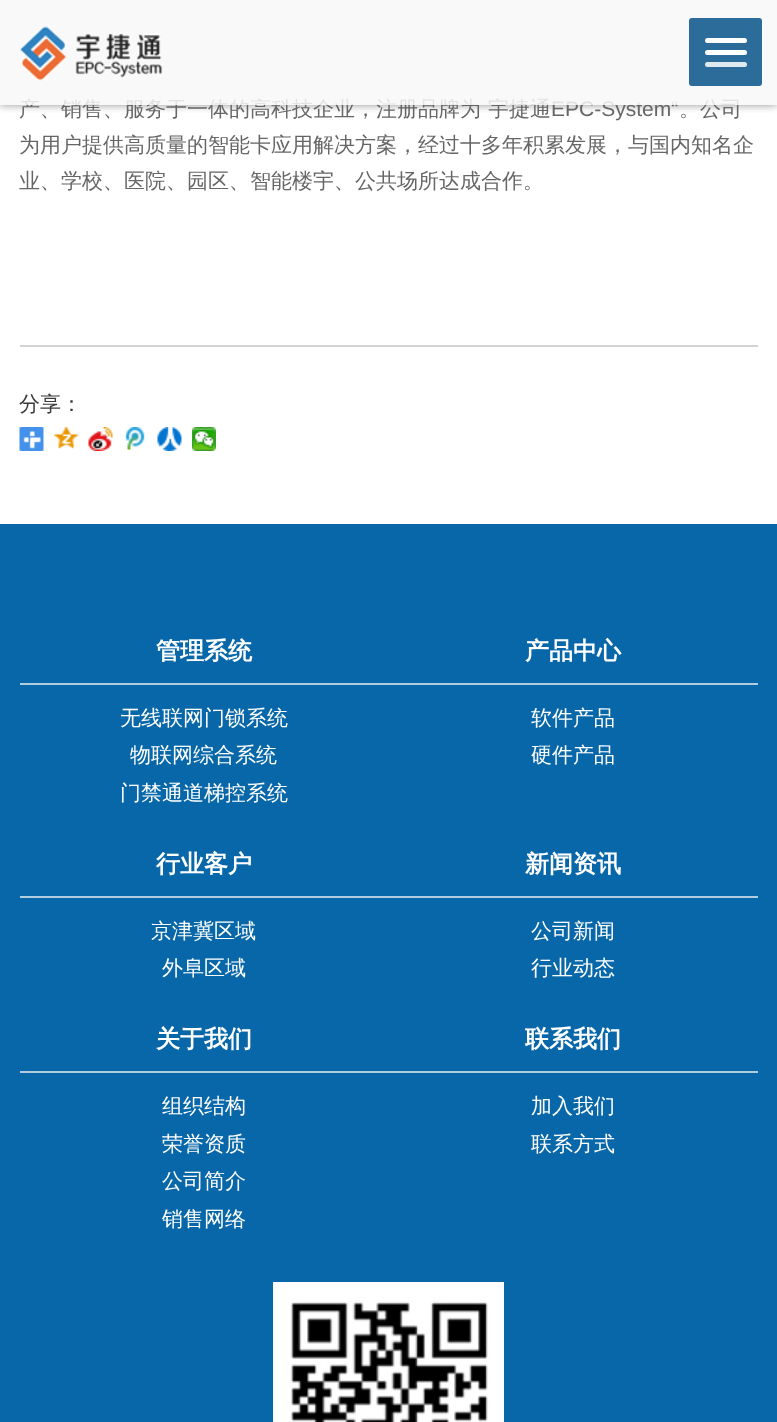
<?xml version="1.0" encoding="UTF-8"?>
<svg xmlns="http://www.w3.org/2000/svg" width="777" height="1422">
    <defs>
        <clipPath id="clip1"><rect x="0" y="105" width="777" height="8"/></clipPath>
        <filter id="blur1" x="-50%" y="-200%" width="200%" height="500%"><feGaussianBlur stdDeviation="4"/></filter>
    </defs>
    <rect width="100%" height="100%" fill="#FFFFFF"/>
    <g clip-path="url(#clip1)">
        <rect x="0" y="0" width="777" height="105" fill="#808080" fill-opacity="0.85" filter="url(#blur1)"/>
    </g>
    <text x="19" y="116" font-family="WenQuanYi Zen Hei" font-size="21" font-weight="500" fill="#666666">产、销售、服务于一体的高科技企业，注册品牌为</text>
    <text x="488" y="116" font-family="WenQuanYi Zen Hei" font-size="21" font-weight="500" fill="#666666">宇捷通</text>
    <text x="551" y="116" font-family="Liberation Sans" font-size="21" fill="#666666">EPC-System“</text>
    <text x="679" y="116" font-family="WenQuanYi Zen Hei" font-size="21" font-weight="500" fill="#666666">。公司</text>
    <rect x="0" y="0" width="777" height="105" fill="#F8F8F8" fill-opacity="0.85"/>
    <image x="19" y="26" width="145" height="55" href="img_01.png"/>
    <rect x="689" y="18" width="73" height="68" rx="3" fill="#07538A" fill-opacity="0.85"/>
    <rect x="705" y="38" width="42" height="5" rx="2.5" fill="#FFFFFF"/>
    <rect x="705" y="50" width="42" height="5" rx="2.5" fill="#FFFFFF"/>
    <rect x="705" y="62" width="42" height="5" rx="2.5" fill="#FFFFFF" fill-opacity="0.85"/>
    <text font-family="WenQuanYi Zen Hei" font-size="21" font-weight="500" fill="#666666">
        <tspan x="19" y="152">为用户提供高质量的智能卡应用解决方案，经过十多年积累发展，与国内知名企</tspan>
        <tspan x="19" y="188">业、学校、医院、园区、智能楼宇、公共场所达成合作。</tspan>
    </text>
    <rect x="20" y="345" width="738" height="2" fill="#D3D3D3"/>
    <text x="19" y="411" font-family="WenQuanYi Zen Hei" font-size="21" font-weight="500" fill="#393939">分享：</text>
    <image x="19" y="427" width="25" height="24" href="img_02.png"/>
    <image x="54" y="427" width="24" height="22" href="img_03.png"/>
    <image x="88" y="427" width="25" height="24" href="img_04.png"/>
    <image x="125" y="427" width="20" height="23" href="img_05.png"/>
    <image x="157" y="427" width="25" height="24" href="img_06.png"/>
    <image x="192" y="427" width="24" height="24" href="img_07.png"/>
    <rect x="0" y="524" width="777" height="898" fill="#0767A8"/>
    <rect x="20" y="683" width="738" height="2" fill="#B1CEE1"/>
    <text x="156" y="659" font-family="WenQuanYi Zen Hei" font-size="24" font-weight="700" fill="#FFFFFF">管理系统</text>
    <text x="120" y="725" font-family="WenQuanYi Zen Hei" font-size="21" font-weight="500" fill="#FFFFFF">无线联网门锁系统</text>
    <text x="130" y="762" font-family="WenQuanYi Zen Hei" font-size="21" font-weight="500" fill="#FFFFFF">物联网综合系统</text>
    <text x="120" y="800" font-family="WenQuanYi Zen Hei" font-size="21" font-weight="500" fill="#FFFFFF">门禁通道梯控系统</text>
    <text x="525" y="659" font-family="WenQuanYi Zen Hei" font-size="24" font-weight="700" fill="#FFFFFF">产品中心</text>
    <text font-family="WenQuanYi Zen Hei" font-size="21" font-weight="500" fill="#FFFFFF">
        <tspan x="531" y="725">软件产品</tspan>
        <tspan x="531" y="762">硬件产品</tspan>
    </text>
    <rect x="20" y="896" width="738" height="2" fill="#B1CEE1"/>
    <text x="156" y="872" font-family="WenQuanYi Zen Hei" font-size="24" font-weight="700" fill="#FFFFFF">行业客户</text>
    <text x="151" y="938" font-family="WenQuanYi Zen Hei" font-size="21" font-weight="500" fill="#FFFFFF">京津冀区域</text>
    <text x="162" y="975" font-family="WenQuanYi Zen Hei" font-size="21" font-weight="500" fill="#FFFFFF">外阜区域</text>
    <text x="525" y="872" font-family="WenQuanYi Zen Hei" font-size="24" font-weight="700" fill="#FFFFFF">新闻资讯</text>
    <text font-family="WenQuanYi Zen Hei" font-size="21" font-weight="500" fill="#FFFFFF">
        <tspan x="531" y="938">公司新闻</tspan>
        <tspan x="531" y="975">行业动态</tspan>
    </text>
    <rect x="20" y="1071" width="738" height="2" fill="#B1CEE1"/>
    <text x="156" y="1047" font-family="WenQuanYi Zen Hei" font-size="24" font-weight="700" fill="#FFFFFF">关于我们</text>
    <text font-family="WenQuanYi Zen Hei" font-size="21" font-weight="500" fill="#FFFFFF">
        <tspan x="162" y="1113">组织结构</tspan>
        <tspan x="162" y="1151">荣誉资质</tspan>
        <tspan x="162" y="1188">公司简介</tspan>
        <tspan x="162" y="1226">销售网络</tspan>
    </text>
    <text x="525" y="1047" font-family="WenQuanYi Zen Hei" font-size="24" font-weight="700" fill="#FFFFFF">联系我们</text>
    <text font-family="WenQuanYi Zen Hei" font-size="21" font-weight="500" fill="#FFFFFF">
        <tspan x="531" y="1113">加入我们</tspan>
        <tspan x="531" y="1151">联系方式</tspan>
    </text>
    <image x="273" y="1282" width="231" height="140" href="img_08.png"/>
</svg>
